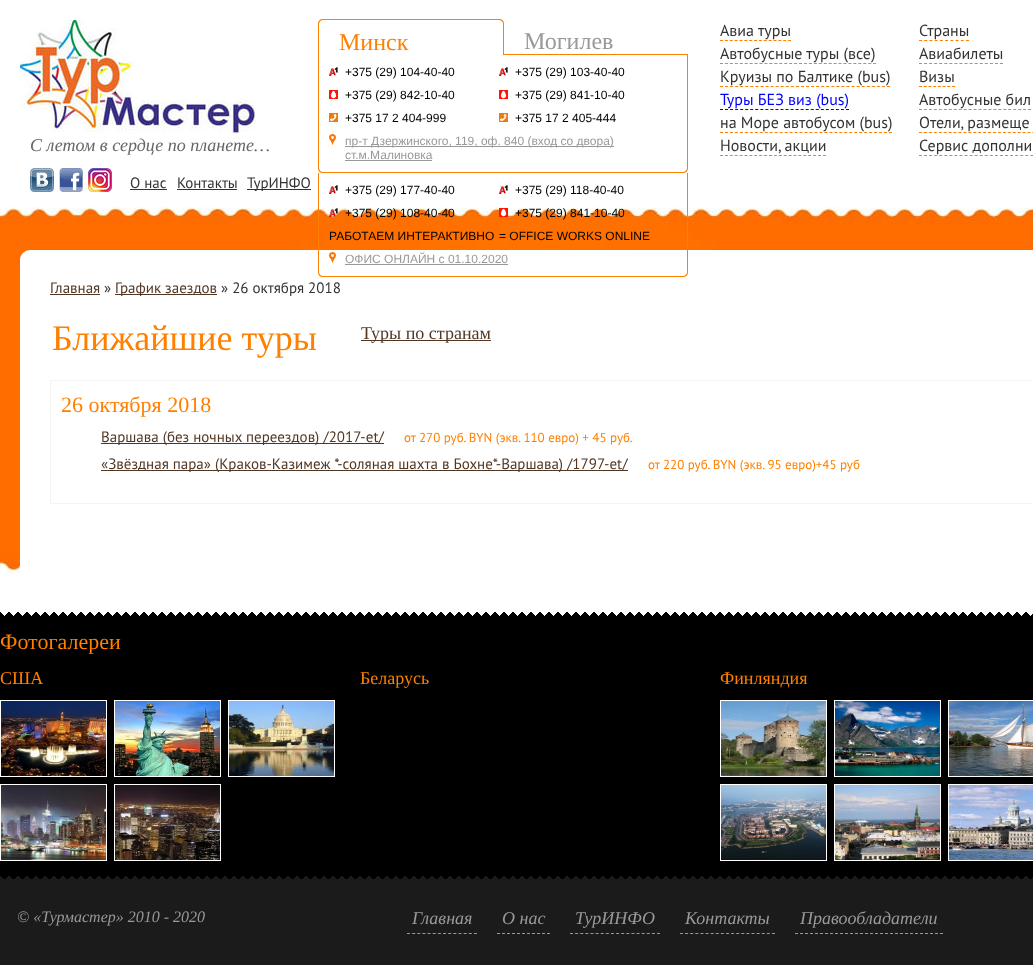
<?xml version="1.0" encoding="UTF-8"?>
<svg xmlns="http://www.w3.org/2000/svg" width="1033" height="965">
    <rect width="100%" height="100%" fill="#FFFFFF"/>
    <image x="0" y="207" width="1033" height="369" href="img_01.png"/>
    <image x="20" y="20" width="236" height="114" href="img_02.png"/>
    <path d="M 323 19 H 499 C 502 19 504 21 504 24 V 55 H 318 V 24 C 318 21 320 19 323 19 Z M 323 20 H 499 C 501 20 503 22 503 24 V 55 H 319 V 24 C 319 22 321 20 323 20 Z" fill="#FF8000" fill-rule="evenodd"/>
    <text x="339" y="50" font-family="Liberation Serif" font-size="24" fill="#FF8000">Минск</text>
    <rect x="504" y="54" width="184" height="1" fill="#FF8000"/>
    <text x="524" y="49" font-family="Liberation Serif" font-size="24" fill="#999999">Могилев</text>
    <path d="M 318 55 H 688 V 168 C 688 171 686 173 683 173 H 323 C 320 173 318 171 318 168 Z M 319 55 H 687 V 168 C 687 170 685 172 683 172 H 323 C 321 172 319 170 319 168 Z" fill="#FF8000" fill-rule="evenodd"/>
    <image x="329" y="67" width="9" height="9" href="img_03.png"/>
    <text x="345" y="76" font-family="Liberation Sans" font-size="12" fill="#000000">+375 (29) 104-40-40</text>
    <image x="499" y="67" width="9" height="9" href="img_03.png"/>
    <text x="515" y="76" font-family="Liberation Sans" font-size="12" fill="#000000">+375 (29) 103-40-40</text>
    <image x="329" y="90" width="9" height="9" href="img_04.png"/>
    <text x="345" y="99" font-family="Liberation Sans" font-size="12" fill="#000000">+375 (29) 842-10-40</text>
    <image x="499" y="90" width="9" height="9" href="img_04.png"/>
    <text x="515" y="99" font-family="Liberation Sans" font-size="12" fill="#000000">+375 (29) 841-10-40</text>
    <image x="329" y="113" width="9" height="9" href="img_05.png"/>
    <text x="345" y="122" font-family="Liberation Sans" font-size="12" fill="#000000">+375 17 2 404-999</text>
    <image x="499" y="113" width="9" height="9" href="img_05.png"/>
    <text x="515" y="122" font-family="Liberation Sans" font-size="12" fill="#000000">+375 17 2 405-444</text>
    <image x="329" y="134" width="7" height="11" href="img_06.png"/>
    <rect x="345" y="146" width="269" height="1" fill="#999999"/>
    <text font-family="Liberation Sans" font-size="12" fill="#999999">
        <tspan x="345" y="145">пр-т Дзержинского, 119, оф. 840 (вход со двора)</tspan>
        <tspan x="345" y="159">ст.м.Малиновка</tspan>
    </text>
    <rect x="345" y="160" width="87" height="1" fill="#999999"/>
    <rect x="20" y="250" width="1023" height="360" rx="10" fill="#FFFFFF"/>
    <path d="M 318 173 H 688 V 272 C 688 275 686 277 683 277 H 323 C 320 277 318 275 318 272 Z M 319 173 H 687 V 272 C 687 274 685 276 683 276 H 323 C 321 276 319 274 319 272 Z" fill="#FF8000" fill-rule="evenodd"/>
    <image x="329" y="185" width="9" height="9" href="img_03.png"/>
    <text x="345" y="194" font-family="Liberation Sans" font-size="12" fill="#000000">+375 (29) 177-40-40</text>
    <image x="499" y="185" width="9" height="9" href="img_03.png"/>
    <text x="515" y="194" font-family="Liberation Sans" font-size="12" fill="#000000">+375 (29) 118-40-40</text>
    <image x="329" y="208" width="9" height="9" href="img_07.png"/>
    <text x="345" y="217" font-family="Liberation Sans" font-size="12" fill="#000000">+375 (29) 108-40-40</text>
    <image x="499" y="208" width="9" height="9" href="img_04.png"/>
    <text x="515" y="217" font-family="Liberation Sans" font-size="12" fill="#000000">+375 (29) 841-10-40</text>
    <text x="329" y="240" font-family="Liberation Sans" font-size="12" fill="#000000">РАБОТАЕМ ИНТЕРАКТИВНО</text>
    <text x="499" y="240" font-family="Liberation Sans" font-size="12" fill="#000000">= OFFICE WORKS ONLINE</text>
    <image x="329" y="252" width="7" height="11" href="img_06.png"/>
    <text x="345" y="263" font-family="Liberation Sans" font-size="12" fill="#999999">ОФИС ОНЛАЙН с 01.10.2020</text>
    <rect x="345" y="264" width="163" height="1" fill="#999999"/>
    <text x="720" y="36" font-family="PT Sans" font-size="16" fill="#333333">Авиа туры</text>
    <path d="M 720 40.5 H 791" fill="none" stroke="#FF8000" stroke-dasharray="3 1.86"/>
    <text x="919" y="36" font-family="PT Sans" font-size="16" fill="#333333">Страны</text>
    <path d="M 919 40.5 H 969" fill="none" stroke="#FF8000" stroke-dasharray="3 2.22"/>
    <text x="720" y="59" font-family="PT Sans" font-size="16" fill="#333333">Автобусные туры (все)</text>
    <path d="M 720 63.5 H 876" fill="none" stroke="#FF8000" stroke-dasharray="3 1.94"/>
    <text x="919" y="59" font-family="PT Sans" font-size="16" fill="#333333">Авиабилеты</text>
    <path d="M 919 63.5 H 1003" fill="none" stroke="#FF8000" stroke-dasharray="3 2.06"/>
    <text x="720" y="82" font-family="PT Sans" font-size="16" fill="#333333">Круизы по Балтике (bus)</text>
    <path d="M 720 86.5 H 890" fill="none" stroke="#FF8000" stroke-dasharray="3 2.06"/>
    <text x="919" y="82" font-family="PT Sans" font-size="16" fill="#333333">Визы</text>
    <path d="M 919 86.5 H 955" fill="none" stroke="#FF8000" stroke-dasharray="3 1.71"/>
    <text x="720" y="105" font-family="PT Sans" font-size="16" fill="#0000FF">Туры БЕЗ виз (bus)</text>
    <path d="M 720 109.5 H 849" fill="none" stroke="#0000FF" stroke-dasharray="3 2.04"/>
    <text x="919" y="105" font-family="PT Sans" font-size="16" fill="#333333">Автобусные бил</text>
    <path d="M 919 109.5 H 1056" fill="none" stroke="#FF8000" stroke-dasharray="3 1.96"/>
    <text x="720" y="128" font-family="PT Sans" font-size="16" fill="#333333">на Море автобусом (bus)</text>
    <path d="M 720 132.5 H 892" fill="none" stroke="#FF8000" stroke-dasharray="3 1.97"/>
    <text x="919" y="128" font-family="PT Sans" font-size="16" fill="#333333">Отели, размеще</text>
    <path d="M 919 132.5 H 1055" fill="none" stroke="#FF8000" stroke-dasharray="3 1.93"/>
    <text x="720" y="151" font-family="PT Sans" font-size="16" fill="#333333">Новости, акции</text>
    <path d="M 720 155.5 H 826" fill="none" stroke="#FF8000" stroke-dasharray="3 1.9"/>
    <text x="919" y="151" font-family="PT Sans" font-size="16" fill="#333333">Сервис дополни</text>
    <path d="M 919 155.5 H 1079" fill="none" stroke="#FF8000" stroke-dasharray="3 2.06"/>
    <text x="30" y="151" font-family="Liberation Serif" font-size="18" font-style="italic" fill="#666666">С летом в сердце по планете…</text>
    <image x="30" y="168" width="24" height="24" href="img_08.png"/>
    <image x="59" y="168" width="24" height="24" href="img_09.png"/>
    <image x="88" y="168" width="24" height="24" href="img_10.png"/>
    <text x="130" y="188" font-family="PT Sans" font-size="15" fill="#333333">О нас</text>
    <rect x="130" y="189" width="37" height="1" fill="#333333"/>
    <text x="177" y="188" font-family="PT Sans" font-size="15" fill="#333333">Контакты</text>
    <rect x="177" y="189" width="60" height="1" fill="#333333"/>
    <rect x="247" y="189" width="64" height="1" fill="#333333"/>
    <text x="247" y="188" font-family="PT Sans" font-size="15" fill="#333333">ТурИНФО</text>
    <text x="50" y="293" font-family="PT Sans" font-size="15" fill="#513623">Главная</text>
    <rect x="50" y="294" width="50" height="1" fill="#513623"/>
    <text x="104" y="293" font-family="PT Sans" font-size="15" fill="#333333">»</text>
    <rect x="115" y="294" width="102" height="1" fill="#513623"/>
    <text x="115" y="293" font-family="PT Sans" font-size="15" fill="#513623">График заездов</text>
    <text x="221" y="293" font-family="PT Sans" font-size="15" fill="#333333">» 26 октября 2018</text>
    <text x="52" y="350" font-family="Liberation Serif" font-size="36" fill="#FF8000">Ближайшие туры</text>
    <rect x="361" y="340" width="130" height="1" fill="#513623"/>
    <text x="361" y="339" font-family="Liberation Serif" font-size="18" fill="#513623">Туры по странам</text>
    <rect x="50.5" y="380.5" width="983" height="123" fill="none" stroke="#F3F3F3"/>
    <text x="61" y="412" font-family="Liberation Serif" font-size="22" fill="#FF8000">26 октября 2018</text>
    <rect x="101" y="443" width="283" height="1" fill="#513623"/>
    <text x="101" y="442" font-family="PT Sans" font-size="15" fill="#513623">Варшава (без ночных переездов) /2017-et/</text>
    <text x="404" y="442" font-family="PT Sans" font-size="13" fill="#FF8000">от 270 руб. BYN (экв. 110 евро) + 45 руб.</text>
    <rect x="101" y="470" width="527" height="1" fill="#513623"/>
    <text x="101" y="469" font-family="PT Sans" font-size="15" fill="#513623">«Звёздная пара» (Краков-Казимеж *-соляная шахта в Бохне*-Варшава) /1797-et/</text>
    <text x="648" y="469" font-family="PT Sans" font-size="13" fill="#FF8000">от 220 руб. BYN (экв. 95 евро)+45 руб</text>
    <image x="0" y="612" width="1033" height="353" href="img_11.png"/>
    <text x="0" y="649" font-family="Liberation Serif" font-size="22" fill="#FF8000">Фотогалереи</text>
    <text x="0" y="684" font-family="Liberation Serif" font-size="18" fill="#FF8000">США</text>
    <rect x="0.5" y="700.5" width="106" height="76" fill="none" stroke="#FFFFFF"/>
    <image x="1" y="701" width="105" height="75" href="img_12.png"/>
    <rect x="114.5" y="700.5" width="106" height="76" fill="none" stroke="#FFFFFF"/>
    <image x="115" y="701" width="105" height="75" href="img_13.png"/>
    <rect x="228.5" y="700.5" width="106" height="76" fill="none" stroke="#FFFFFF"/>
    <image x="229" y="701" width="105" height="75" href="img_14.png"/>
    <rect x="0.5" y="784.5" width="106" height="76" fill="none" stroke="#FFFFFF"/>
    <image x="1" y="785" width="105" height="75" href="img_15.png"/>
    <rect x="114.5" y="784.5" width="106" height="76" fill="none" stroke="#FFFFFF"/>
    <image x="115" y="785" width="105" height="75" href="img_16.png"/>
    <text x="360" y="684" font-family="Liberation Serif" font-size="18" fill="#FF8000">Беларусь</text>
    <text x="720" y="684" font-family="Liberation Serif" font-size="18" fill="#FF8000">Финляндия</text>
    <rect x="720.5" y="700.5" width="106" height="76" fill="none" stroke="#FFFFFF"/>
    <image x="721" y="701" width="105" height="75" href="img_17.png"/>
    <rect x="834.5" y="700.5" width="106" height="76" fill="none" stroke="#FFFFFF"/>
    <image x="835" y="701" width="105" height="75" href="img_18.png"/>
    <rect x="948.5" y="700.5" width="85" height="76" fill="none" stroke="#FFFFFF"/>
    <image x="949" y="701" width="84" height="75" href="img_19.png"/>
    <rect x="720.5" y="784.5" width="106" height="76" fill="none" stroke="#FFFFFF"/>
    <image x="721" y="785" width="105" height="75" href="img_20.png"/>
    <rect x="834.5" y="784.5" width="106" height="76" fill="none" stroke="#FFFFFF"/>
    <image x="835" y="785" width="105" height="75" href="img_21.png"/>
    <rect x="948.5" y="784.5" width="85" height="76" fill="none" stroke="#FFFFFF"/>
    <image x="949" y="785" width="84" height="75" href="img_22.png"/>
    <text x="17" y="922" font-family="Liberation Serif" font-size="16" font-style="italic" fill="#999999">© «Турмастер» 2010 - 2020</text>
    <text x="412" y="924" font-family="Liberation Serif" font-size="18" font-style="italic" fill="#999999">Главная</text>
    <path d="M 407 933.5 H 477" fill="none" stroke="#999999" stroke-dasharray="3 2.15"/>
    <text x="502" y="924" font-family="Liberation Serif" font-size="18" font-style="italic" fill="#999999">О нас</text>
    <path d="M 497 933.5 H 550" fill="none" stroke="#999999" stroke-dasharray="3 2"/>
    <text x="575" y="924" font-family="Liberation Serif" font-size="18" font-style="italic" fill="#999999">ТурИНФО</text>
    <path d="M 570 933.5 H 660" fill="none" stroke="#999999" stroke-dasharray="3 2.12"/>
    <text x="685" y="924" font-family="Liberation Serif" font-size="18" font-style="italic" fill="#999999">Контакты</text>
    <path d="M 680 933.5 H 775" fill="none" stroke="#999999" stroke-dasharray="3 2.11"/>
    <text x="800" y="924" font-family="Liberation Serif" font-size="18" font-style="italic" fill="#999999">Правообладатели</text>
    <path d="M 795 933.5 H 943" fill="none" stroke="#999999" stroke-dasharray="3 2"/>
</svg>
